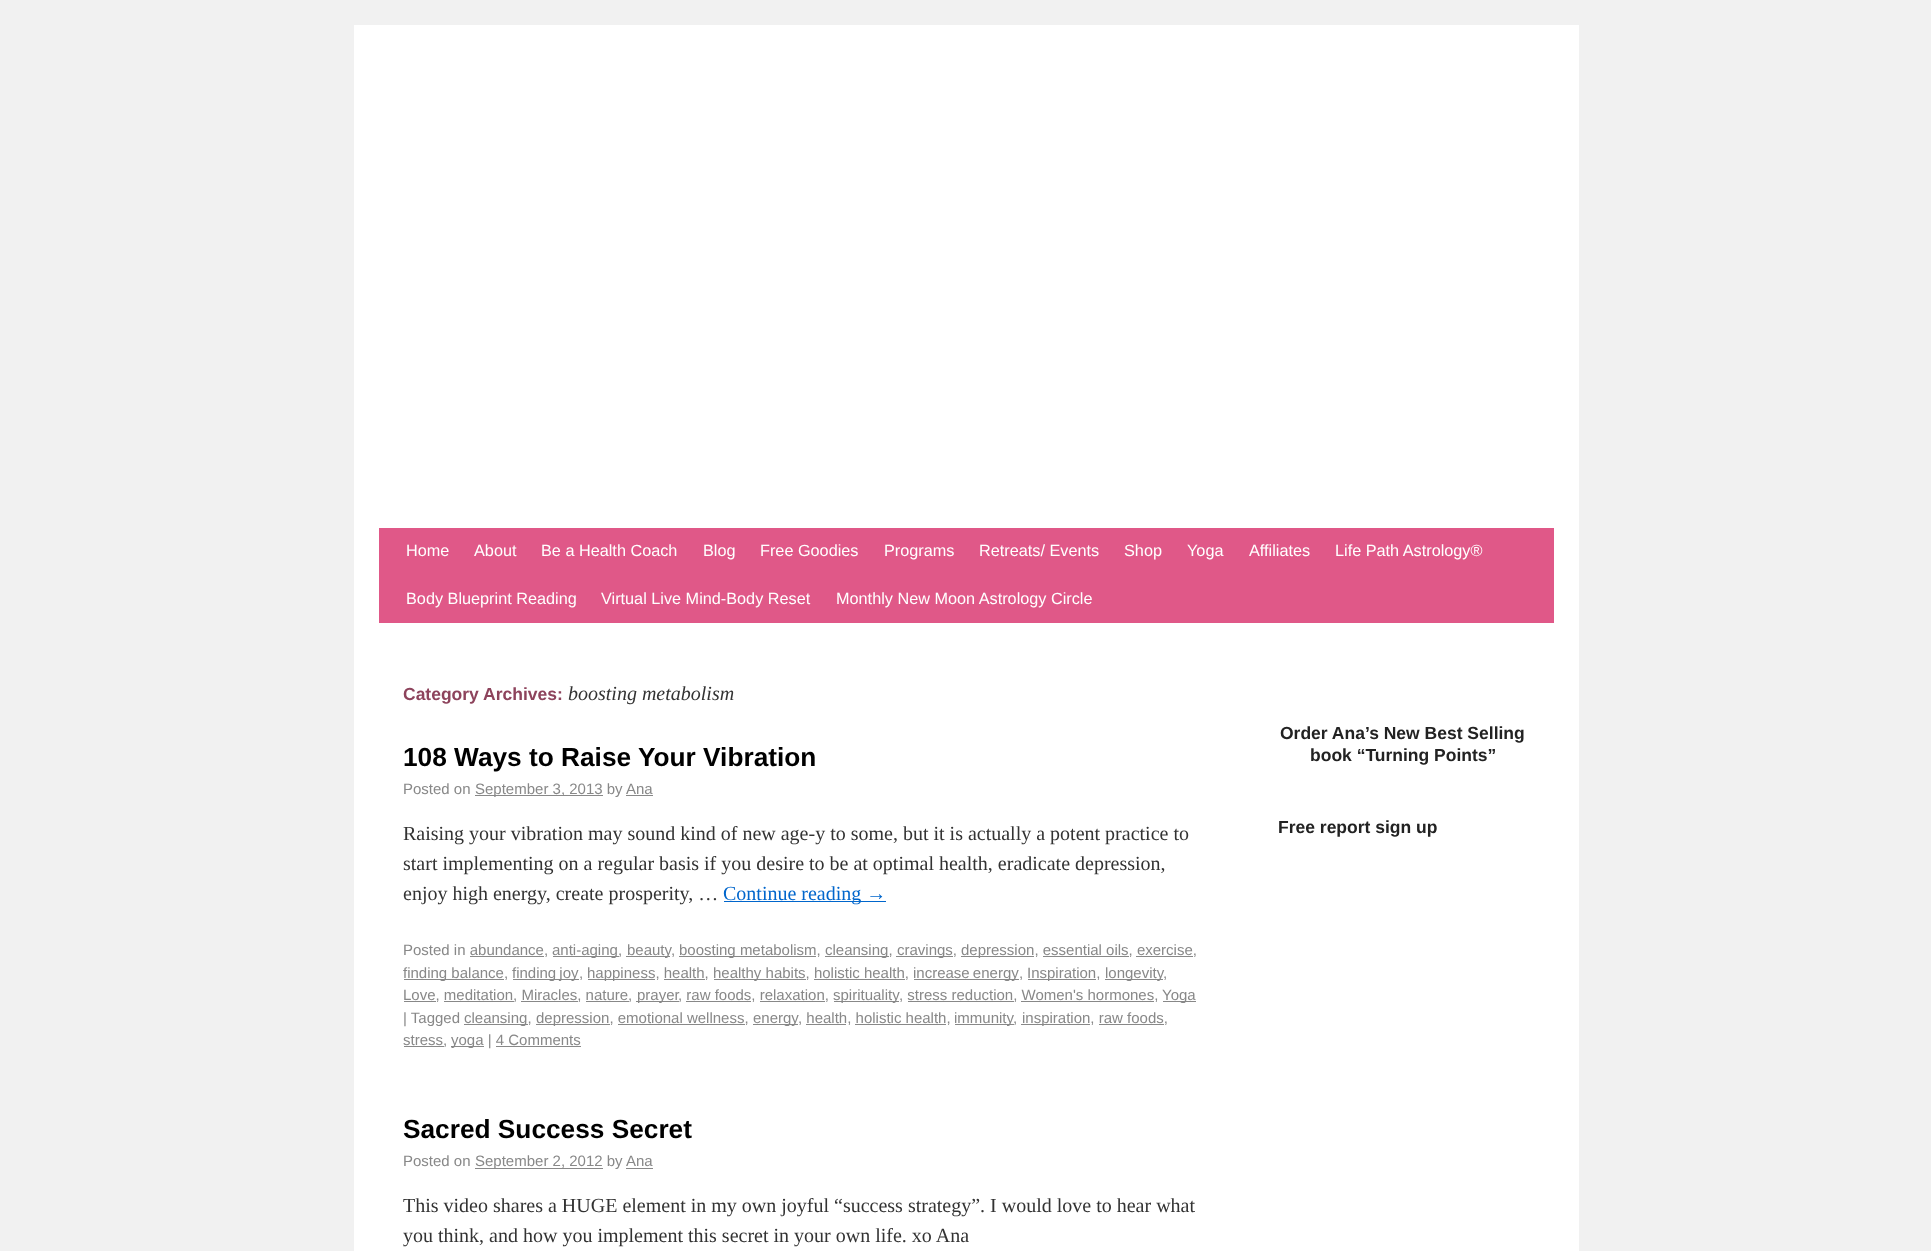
<?xml version="1.0" encoding="UTF-8"?>
<svg xmlns="http://www.w3.org/2000/svg" width="1931" height="1251">
    <rect width="100%" height="100%" fill="#F1F1F1"/>
    <rect x="354" y="25" width="1225" height="1226" fill="#FFFFFF"/>
    <rect x="379" y="528" width="1175" height="95" fill="#E05888"/>
    <text x="406" y="556" font-family="Liberation Sans" font-size="16.25" fill="#FFFFFF">Home</text>
    <text x="474" y="556" font-family="Liberation Sans" font-size="16.25" fill="#FFFFFF">About</text>
    <text x="541" y="556" font-family="Liberation Sans" font-size="16.25" fill="#FFFFFF">Be a Health Coach</text>
    <text x="703" y="556" font-family="Liberation Sans" font-size="16.25" fill="#FFFFFF">Blog</text>
    <text x="760" y="556" font-family="Liberation Sans" font-size="16.25" fill="#FFFFFF">Free Goodies</text>
    <text x="884" y="556" font-family="Liberation Sans" font-size="16.25" fill="#FFFFFF">Programs</text>
    <text x="979" y="556" font-family="Liberation Sans" font-size="16.25" fill="#FFFFFF">Retreats/ Events</text>
    <text x="1124" y="556" font-family="Liberation Sans" font-size="16.25" fill="#FFFFFF">Shop</text>
    <text x="1187" y="556" font-family="Liberation Sans" font-size="16.25" fill="#FFFFFF">Yoga</text>
    <text x="1249" y="556" font-family="Liberation Sans" font-size="16.25" fill="#FFFFFF">Affiliates</text>
    <text x="1335" y="556" font-family="Liberation Sans" font-size="16.25" fill="#FFFFFF">Life Path Astrology®</text>
    <text x="406" y="604" font-family="Liberation Sans" font-size="16.25" fill="#FFFFFF">Body Blueprint Reading</text>
    <text x="601" y="604" font-family="Liberation Sans" font-size="16.25" fill="#FFFFFF">Virtual Live Mind-Body Reset</text>
    <text x="836" y="604" font-family="Liberation Sans" font-size="16.25" fill="#FFFFFF">Monthly New Moon Astrology Circle</text>
    <text x="403" y="700" font-family="Liberation Sans" font-size="17.5" font-weight="700" fill="#8D435C">Category Archives:</text>
    <text x="568" y="700" font-family="Liberation Serif" font-size="20" font-style="italic" fill="#333333">boosting metabolism</text>
    <text x="403" y="766" font-family="Liberation Sans" font-size="26.25" font-weight="700" fill="#000000">108 Ways to Raise Your Vibration</text>
    <text x="403" y="794" font-family="Liberation Sans" font-size="15" fill="#888888">Posted on</text>
    <rect x="475" y="795" width="128" height="1" fill="#888888"/>
    <text x="475" y="794" font-family="Liberation Sans" font-size="15" fill="#888888">September 3, 2013 by</text>
    <text x="626" y="794" font-family="Liberation Sans" font-size="15" fill="#888888">Ana</text>
    <rect x="626" y="795" width="27" height="1" fill="#888888"/>
    <text font-family="Liberation Serif" font-size="20" fill="#333333">
        <tspan x="403" y="840">Raising your vibration may sound kind of new age-y to some, but it is actually a potent practice to</tspan>
        <tspan x="403" y="870">start implementing on a regular basis if you desire to be at optimal health, eradicate depression,</tspan>
        <tspan x="403" y="900">enjoy high energy, create prosperity, …</tspan>
    </text>
    <rect x="724" y="901" width="162" height="1" fill="#0066CC"/>
    <text x="723" y="900" font-family="Liberation Serif" font-size="20" fill="#0066CC">Continue reading →</text>
    <text x="403" y="955" font-family="Liberation Sans" font-size="15" fill="#888888">Posted in abundance,</text>
    <rect x="470" y="956" width="74" height="1" fill="#888888"/>
    <rect x="553" y="956" width="66" height="1" fill="#888888"/>
    <text x="552" y="955" font-family="Liberation Sans" font-size="15" fill="#888888">anti-aging,</text>
    <rect x="626" y="956" width="44" height="1" fill="#888888"/>
    <text x="627" y="955" font-family="Liberation Sans" font-size="15" fill="#888888">beauty</text>
    <text x="671" y="955" font-family="Liberation Sans" font-size="15" fill="#888888">,</text>
    <rect x="679" y="956" width="137" height="1" fill="#888888"/>
    <text x="679" y="955" font-family="Liberation Sans" font-size="15" fill="#888888">boosting metabolism,</text>
    <rect x="825" y="956" width="64" height="1" fill="#888888"/>
    <text x="825" y="955" font-family="Liberation Sans" font-size="15" fill="#888888">cleansing,</text>
    <rect x="896" y="956" width="57" height="1" fill="#888888"/>
    <text x="897" y="955" font-family="Liberation Sans" font-size="15" fill="#888888">cravings,</text>
    <rect x="961" y="956" width="73" height="1" fill="#888888"/>
    <text x="961" y="955" font-family="Liberation Sans" font-size="15" fill="#888888">depression, essential oils, exercise,</text>
    <rect x="1043" y="956" width="86" height="1" fill="#888888"/>
    <rect x="1136" y="956" width="57" height="1" fill="#888888"/>
    <rect x="404" y="979" width="100" height="1" fill="#888888"/>
    <text x="403" y="978" font-family="Liberation Sans" font-size="15" fill="#888888">finding balance,</text>
    <rect x="513" y="979" width="66" height="1" fill="#888888"/>
    <text x="512" y="978" word-spacing="-1" font-family="Liberation Sans" font-size="15" fill="#888888">finding joy</text>
    <text x="579" y="978" font-family="Liberation Sans" font-size="15" fill="#888888">,</text>
    <rect x="588" y="979" width="67" height="1" fill="#888888"/>
    <text x="587" y="978" font-family="Liberation Sans" font-size="15" fill="#888888">happiness, health,</text>
    <rect x="664" y="979" width="41" height="1" fill="#888888"/>
    <rect x="714" y="979" width="92" height="1" fill="#888888"/>
    <text x="713" y="978" font-family="Liberation Sans" font-size="15" fill="#888888">healthy habits, holistic health,</text>
    <rect x="814" y="979" width="91" height="1" fill="#888888"/>
    <rect x="914" y="979" width="105" height="1" fill="#888888"/>
    <text x="913" y="978" word-spacing="-1" font-family="Liberation Sans" font-size="15" fill="#888888">increase energy</text>
    <text x="1019" y="978" font-family="Liberation Sans" font-size="15" fill="#888888">,</text>
    <rect x="1028" y="979" width="68" height="1" fill="#888888"/>
    <text x="1027" y="978" font-family="Liberation Sans" font-size="15" fill="#888888">Inspiration,</text>
    <rect x="1105" y="979" width="58" height="1" fill="#888888"/>
    <text x="1105" y="978" font-family="Liberation Sans" font-size="15" fill="#888888">longevity</text>
    <text x="1163" y="978" font-family="Liberation Sans" font-size="15" fill="#888888">,</text>
    <rect x="404" y="1001" width="32" height="1" fill="#888888"/>
    <text x="403" y="1000" font-family="Liberation Sans" font-size="15" fill="#888888">Love, meditation, Miracles, nature,</text>
    <rect x="444" y="1001" width="70" height="1" fill="#888888"/>
    <rect x="521" y="1001" width="57" height="1" fill="#888888"/>
    <rect x="586" y="1001" width="43" height="1" fill="#888888"/>
    <rect x="636" y="1001" width="43" height="1" fill="#888888"/>
    <text x="637" y="1000" font-family="Liberation Sans" font-size="15" fill="#888888">prayer</text>
    <text x="678" y="1000" font-family="Liberation Sans" font-size="15" fill="#888888">, raw foods, relaxation,</text>
    <rect x="686" y="1001" width="65" height="1" fill="#888888"/>
    <rect x="760" y="1001" width="65" height="1" fill="#888888"/>
    <rect x="834" y="1001" width="65" height="1" fill="#888888"/>
    <text x="833" y="1000" font-family="Liberation Sans" font-size="15" fill="#888888">spirituality</text>
    <text x="899" y="1000" font-family="Liberation Sans" font-size="15" fill="#888888">, stress reduction, Women's hormones,</text>
    <rect x="908" y="1001" width="106" height="1" fill="#888888"/>
    <rect x="1021" y="1001" width="133" height="1" fill="#888888"/>
    <rect x="1163" y="1001" width="33" height="1" fill="#888888"/>
    <text x="1162" y="1000" font-family="Liberation Sans" font-size="15" fill="#888888">Yoga</text>
    <text x="403" y="1023" font-family="Liberation Sans" font-size="15" fill="#888888">| Tagged</text>
    <rect x="464" y="1024" width="64" height="1" fill="#888888"/>
    <text x="464" y="1023" font-family="Liberation Sans" font-size="15" fill="#888888">cleansing,</text>
    <rect x="536" y="1024" width="74" height="1" fill="#888888"/>
    <text x="536" y="1023" font-family="Liberation Sans" font-size="15" fill="#888888">depression, emotional wellness,</text>
    <rect x="618" y="1024" width="127" height="1" fill="#888888"/>
    <rect x="753" y="1024" width="45" height="1" fill="#888888"/>
    <text x="753" y="1023" font-family="Liberation Sans" font-size="15" fill="#888888">energy</text>
    <text x="798" y="1023" font-family="Liberation Sans" font-size="15" fill="#888888">, health, holistic health,</text>
    <rect x="806" y="1024" width="40" height="1" fill="#888888"/>
    <rect x="855" y="1024" width="91" height="1" fill="#888888"/>
    <rect x="955" y="1024" width="59" height="1" fill="#888888"/>
    <text x="954" y="1023" font-family="Liberation Sans" font-size="15" fill="#888888">immunity</text>
    <text x="1013" y="1023" font-family="Liberation Sans" font-size="15" fill="#888888">,</text>
    <rect x="1021" y="1024" width="69" height="1" fill="#888888"/>
    <text x="1022" y="1023" font-family="Liberation Sans" font-size="15" fill="#888888">inspiration, raw foods,</text>
    <rect x="1099" y="1024" width="65" height="1" fill="#888888"/>
    <rect x="404" y="1046" width="40" height="1" fill="#888888"/>
    <text x="403" y="1045" font-family="Liberation Sans" font-size="15" fill="#888888">stress,</text>
    <rect x="451" y="1046" width="33" height="1" fill="#888888"/>
    <text x="451" y="1045" font-family="Liberation Sans" font-size="15" fill="#888888">yoga | 4 Comments</text>
    <rect x="496" y="1046" width="85" height="1" fill="#888888"/>
    <text x="403" y="1138" font-family="Liberation Sans" font-size="26.25" font-weight="700" fill="#000000">Sacred Success Secret</text>
    <text x="403" y="1166" font-family="Liberation Sans" font-size="15" fill="#888888">Posted on</text>
    <rect x="475" y="1168" width="128" height="1" fill="#888888"/>
    <text x="475" y="1166" font-family="Liberation Sans" font-size="15" fill="#888888">September 2, 2012 by</text>
    <text x="626" y="1166" font-family="Liberation Sans" font-size="15" fill="#888888">Ana</text>
    <rect x="626" y="1168" width="27" height="1" fill="#888888"/>
    <text font-family="Liberation Serif" font-size="20" fill="#333333">
        <tspan x="403" y="1212">This video shares a HUGE element in my own joyful “success strategy”. I would love to hear what</tspan>
        <tspan x="403" y="1242">you think, and how you implement this secret in your own life. xo Ana</tspan>
    </text>
    <text x="1280" y="739" font-family="Liberation Sans" font-size="17.5" font-weight="700" fill="#222222">Order Ana’s New Best Selling</text>
    <text x="1310" y="761" font-family="Liberation Sans" font-size="17.5" font-weight="700" fill="#222222">book “Turning Points”</text>
    <text x="1278" y="833" font-family="Liberation Sans" font-size="17.5" font-weight="700" fill="#222222">Free report sign up</text>
</svg>
